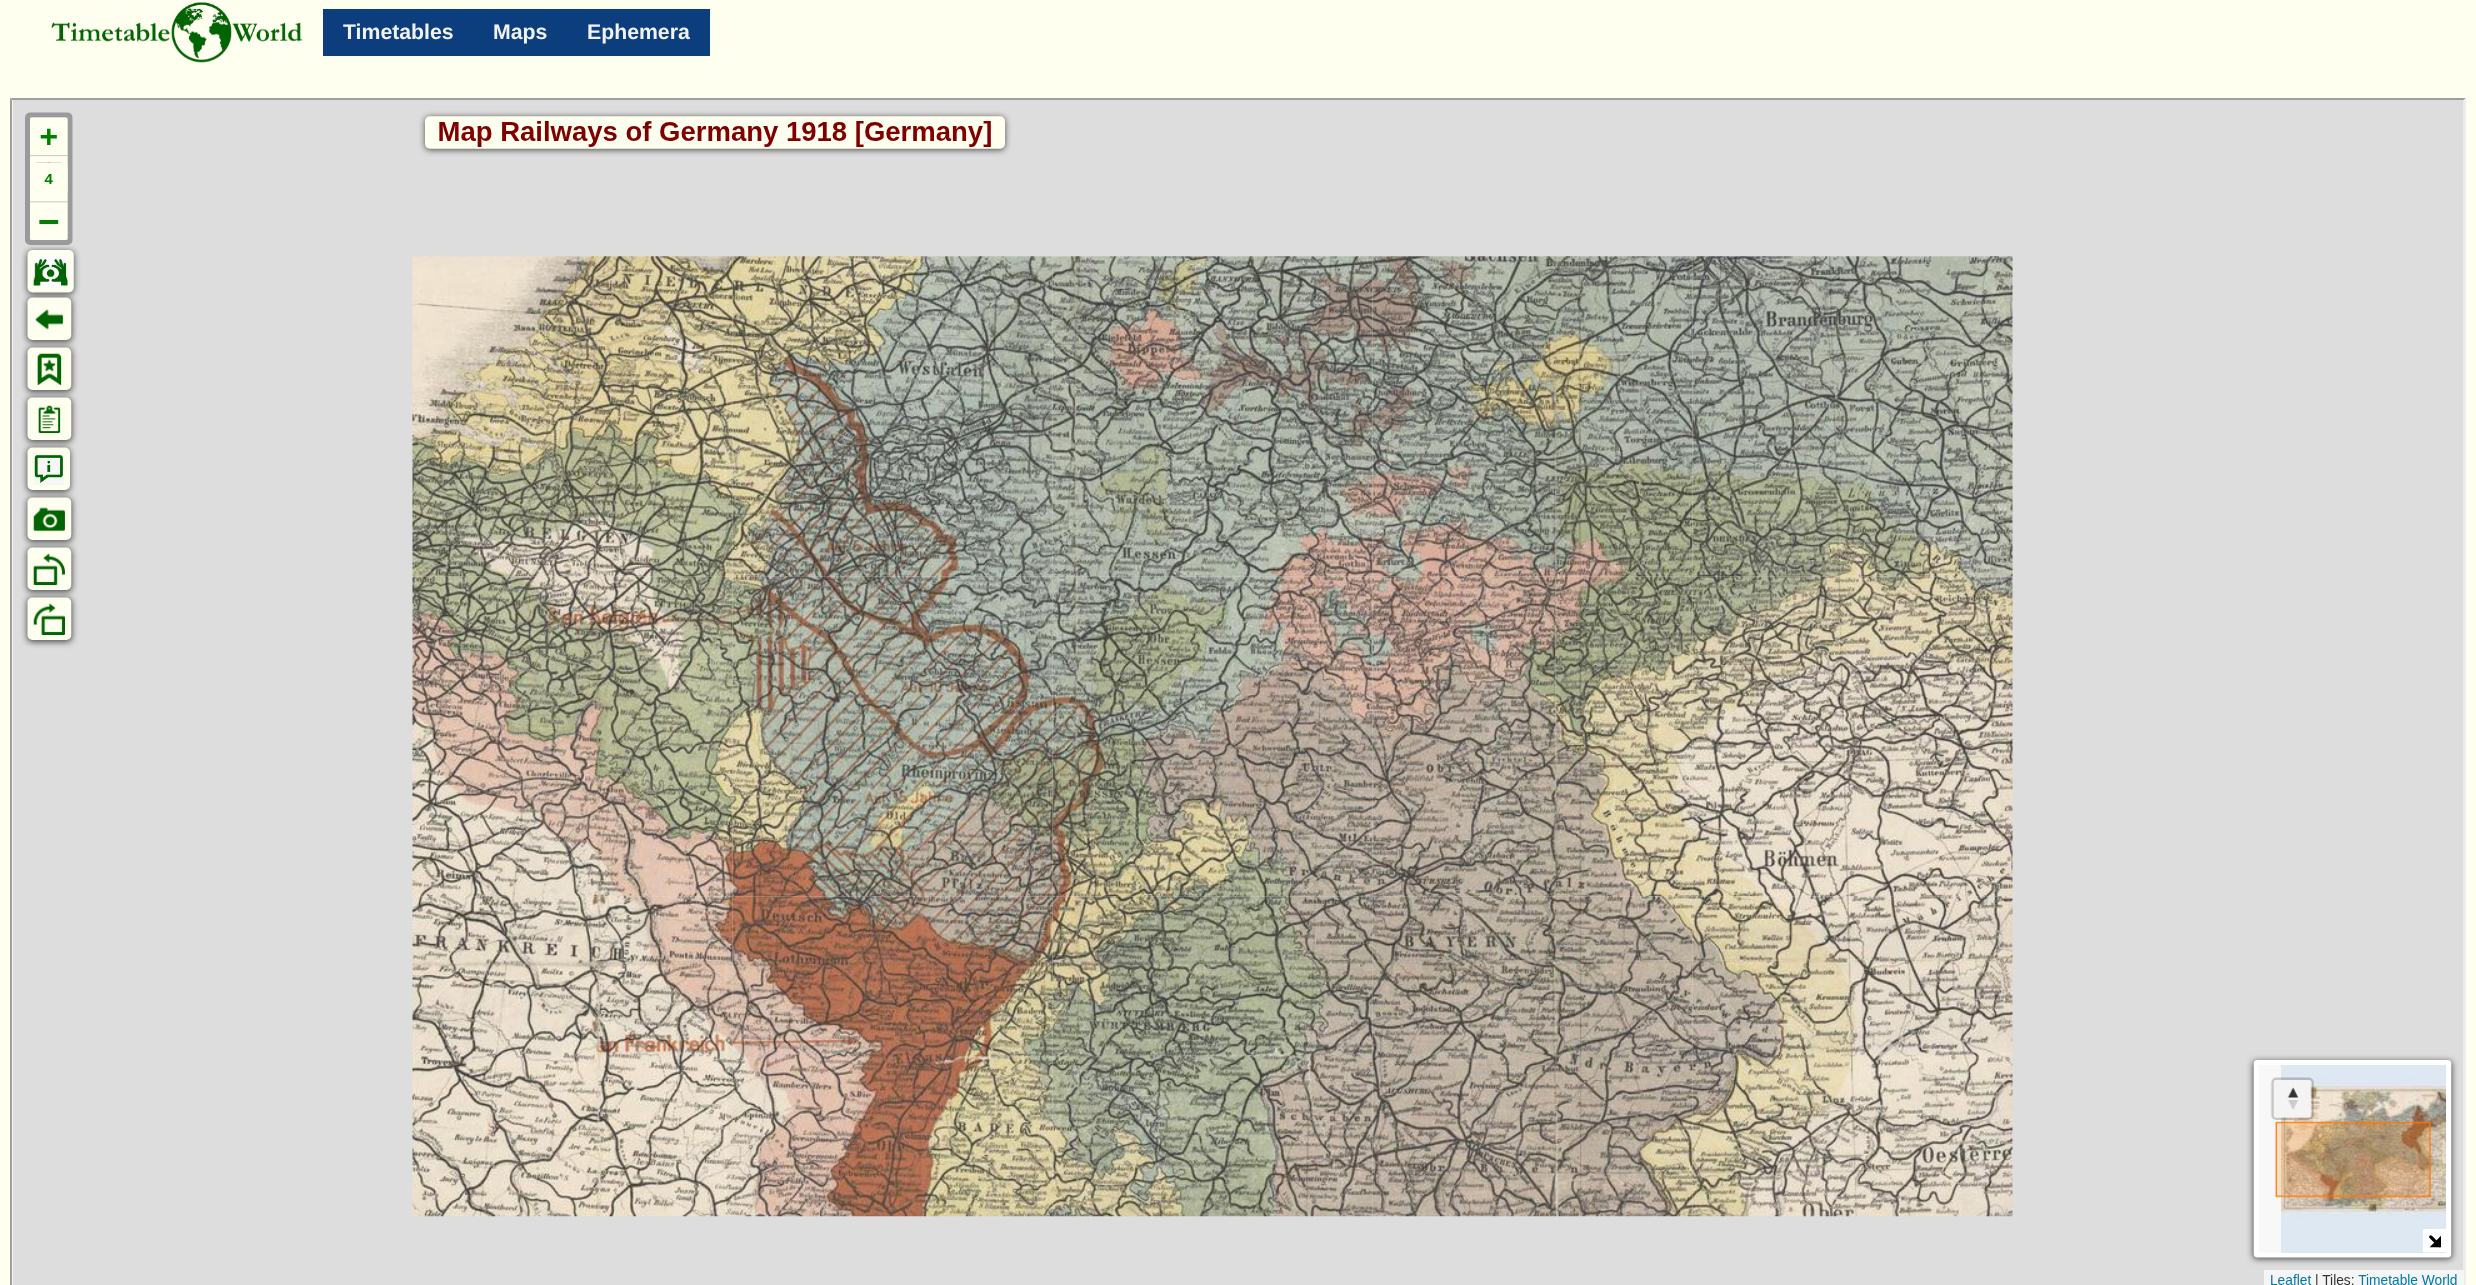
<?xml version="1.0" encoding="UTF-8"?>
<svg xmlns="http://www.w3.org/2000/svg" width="2476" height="1285">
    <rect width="100%" height="100%" fill="#FFFFF0"/>
    <image x="51" y="2" width="252" height="61" href="img_01.png"/>
    <rect x="323" y="9" width="387" height="47" fill="#0C3D7C"/>
    <text x="343" y="39" font-family="Liberation Sans" font-size="21.25" font-weight="700" fill="#F2F2F2">Timetables</text>
    <text x="493" y="39" font-family="Liberation Sans" font-size="21.25" font-weight="700" fill="#F2F2F2">Maps</text>
    <text x="587" y="39" font-family="Liberation Sans" font-size="21.25" font-weight="700" fill="#F2F2F2">Ephemera</text>
    <path d="M 10 98 H 2466 L 2464 100 H 12 Z" fill="#9F9F9F"/>
    <path d="M 10 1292 V 98 L 12 100 V 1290 Z" fill="#9F9F9F"/>
    <image x="12" y="100" width="2452" height="1185" href="img_02.png"/>
    <path d="M 2466 98 V 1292 L 2464 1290 V 100 Z" fill="#EEEEEE"/>
</svg>
